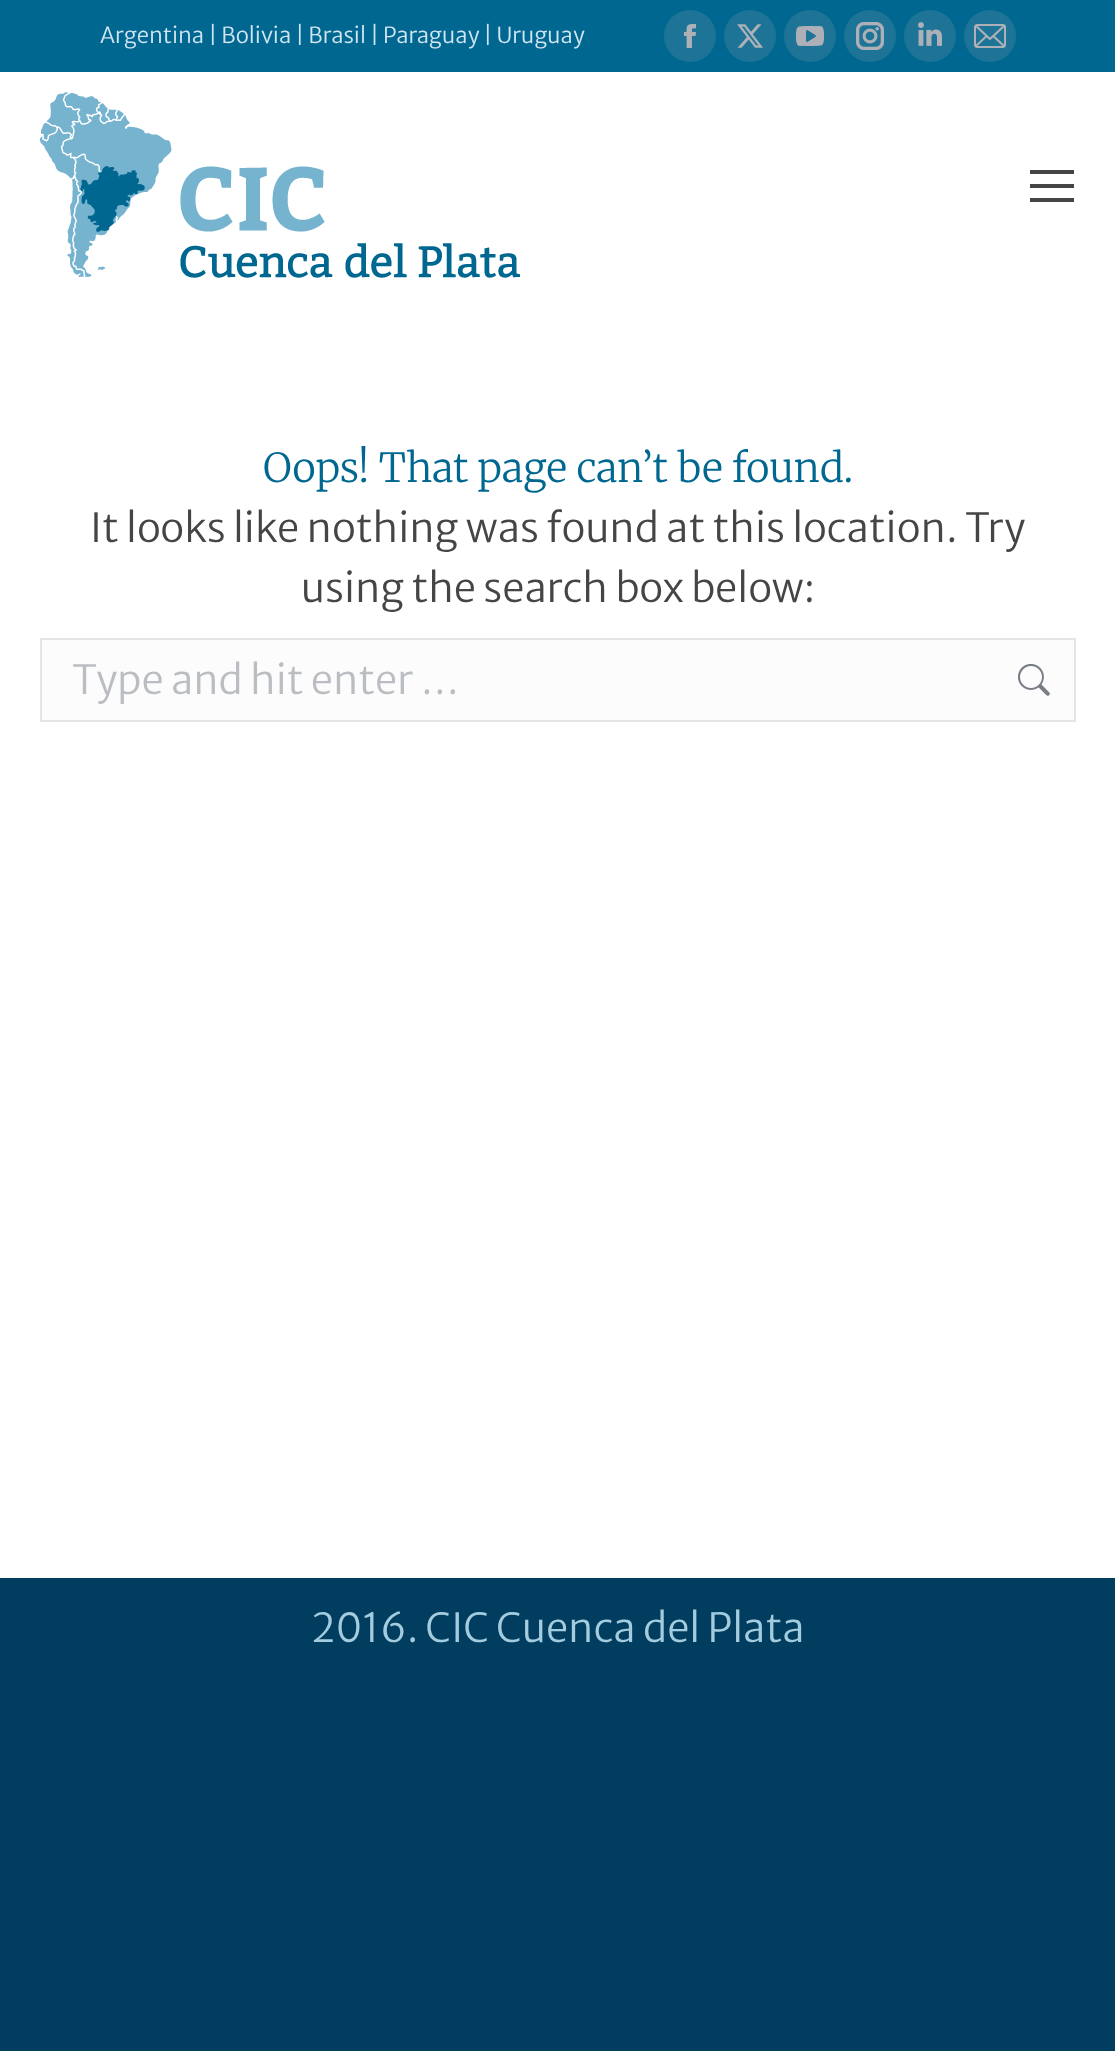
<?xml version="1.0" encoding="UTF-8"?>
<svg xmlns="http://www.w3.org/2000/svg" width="1115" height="2051">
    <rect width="100%" height="100%" fill="#003D5E"/>
    <rect x="0" y="72" width="1115" height="1506" fill="#FFFFFF"/>
    <rect x="0" y="0" width="1115" height="72" fill="#006890"/>
    <text x="100" y="43" font-family="Merriweather Sans" font-size="22" font-weight="300" fill="#D1E4F1">Argentina | Bolivia | Brasil | Paraguay | Uruguay</text>
    <circle cx="690" cy="36" r="26" fill="#1D7496"/>
    <image x="683" y="24" width="14" height="24" href="img_01.png"/>
    <circle cx="750" cy="36" r="26" fill="#1D7496"/>
    <image x="737" y="24" width="26" height="24" href="img_02.png"/>
    <circle cx="810" cy="36" r="26" fill="#1D7496"/>
    <image x="796" y="26" width="28" height="20" href="img_03.png"/>
    <circle cx="870" cy="36" r="26" fill="#1D7496"/>
    <image x="856" y="22" width="28" height="28" href="img_04.png"/>
    <circle cx="930" cy="36" r="26" fill="#1D7496"/>
    <image x="918" y="22" width="24" height="24" href="img_05.png"/>
    <circle cx="990" cy="36" r="26" fill="#1D7496"/>
    <image x="974" y="24" width="32" height="24" href="img_06.png"/>
    <image x="40" y="92" width="480" height="186" href="img_07.png"/>
    <rect x="1030" y="170" width="44" height="4" fill="#454545"/>
    <rect x="1030" y="184" width="44" height="4" fill="#454545"/>
    <rect x="1030" y="198" width="44" height="4" fill="#454545"/>
    <text x="263" y="482" font-family="Merriweather" font-size="40" font-weight="300" fill="#006890">Oops! That page can’t be found.</text>
    <text x="90" y="542" font-family="Merriweather Sans" font-size="40" font-weight="300" fill="#454545">It looks like nothing was found at this location. Try</text>
    <text x="301" y="602" font-family="Merriweather Sans" font-size="40" font-weight="300" fill="#454545">using the search box below:</text>
    <rect x="41" y="639" width="1034" height="82" fill="#FCFCFC" stroke="#E4E5E7" stroke-width="2"/>
    <text x="72" y="694" font-family="Merriweather Sans" font-size="40" font-weight="300" fill="#BABDC1">Type and hit enter …</text>
    <image x="1018" y="664" width="32" height="32" href="img_08.png"/>
    <text x="311" y="1642" font-family="Merriweather Sans" font-size="40" font-weight="300" fill="#A4CCDF">2016. CIC Cuenca del Plata</text>
</svg>
